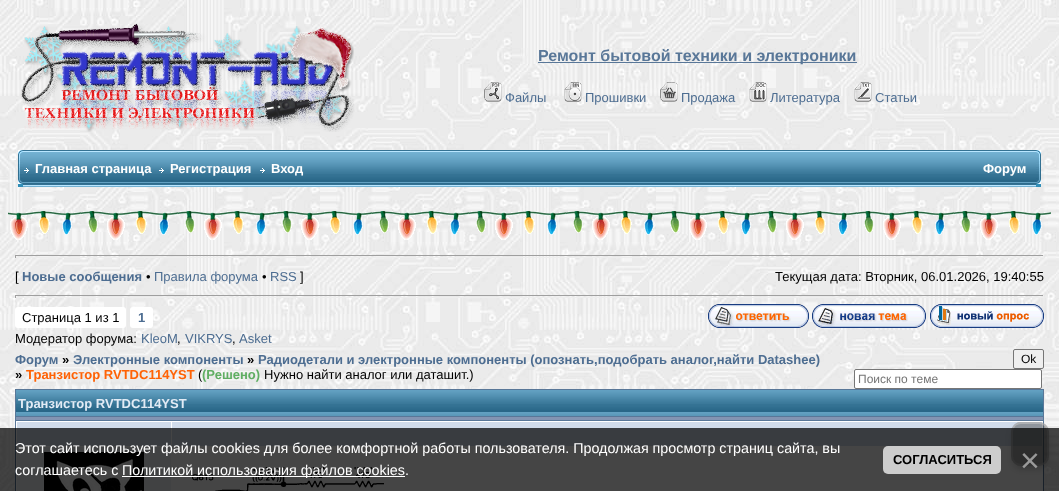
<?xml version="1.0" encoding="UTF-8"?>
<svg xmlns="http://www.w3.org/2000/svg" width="1059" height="491">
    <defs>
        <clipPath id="clip1"><path d="M 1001 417 H 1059 V 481 H 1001 Z M 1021 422 H 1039 C 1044.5 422 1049 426.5 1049 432 V 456 C 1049 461.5 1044.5 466 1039 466 H 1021 C 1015.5 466 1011 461.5 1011 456 V 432 C 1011 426.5 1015.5 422 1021 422 Z" clip-rule="evenodd"/></clipPath>
        <filter id="blur1" x="-50%" y="-200%" width="200%" height="500%"><feGaussianBlur stdDeviation="4"/></filter>
    </defs>
    <rect width="100%" height="100%" fill="#FFFFFF"/>
    <image x="0" y="0" width="1059" height="491" href="img_01.png"/>
    <image x="21" y="23" width="333" height="109" href="img_02.png"/>
    <rect x="538" y="62" width="319" height="1" fill="#597798"/>
    <text x="538" y="61" font-family="Liberation Sans" font-size="16" font-weight="700" fill="#597798">Ремонт бытовой техники и электроники</text>
    <image x="484" y="82" width="18" height="20" href="img_03.png"/>
    <text x="505" y="102" font-family="Liberation Sans" font-size="13" fill="#4D6D91">Файлы</text>
    <image x="564" y="82" width="18" height="20" href="img_04.png"/>
    <text x="585" y="102" font-family="Liberation Sans" font-size="13" fill="#4D6D91">Прошивки</text>
    <image x="660" y="82" width="18" height="20" href="img_05.png"/>
    <text x="681" y="102" font-family="Liberation Sans" font-size="13" fill="#4D6D91">Продажа</text>
    <image x="749" y="82" width="18" height="20" href="img_06.png"/>
    <text x="770" y="102" font-family="Liberation Sans" font-size="13" fill="#4D6D91">Литература</text>
    <image x="854" y="82" width="18" height="20" href="img_07.png"/>
    <text x="875" y="102" font-family="Liberation Sans" font-size="13" fill="#4D6D91">Статьи</text>
    <rect x="18" y="184" width="5" height="3" fill="#318EB7"/>
    <image x="18" y="150" width="5" height="34" href="img_08.png"/>
    <image x="23" y="150" width="810" height="37" href="img_09.png"/>
    <image x="24" y="168" width="5" height="5" href="img_10.png"/>
    <text x="35" y="173" font-family="Liberation Sans" font-size="13" font-weight="700" fill="#FFFFFF">Главная страница</text>
    <image x="159" y="168" width="5" height="5" href="img_10.png"/>
    <text x="170" y="173" font-family="Liberation Sans" font-size="13" font-weight="700" fill="#FFFFFF">Регистрация</text>
    <image x="260" y="168" width="5" height="5" href="img_10.png"/>
    <text x="271" y="173" font-family="Liberation Sans" font-size="13" font-weight="700" fill="#FFFFFF">Вход</text>
    <image x="833" y="150" width="203" height="37" href="img_11.png"/>
    <text x="983" y="173" font-family="Liberation Sans" font-size="13" font-weight="700" fill="#FFFFFF">Форум</text>
    <rect x="1036" y="184" width="5" height="3" fill="#318EB7"/>
    <image x="1036" y="150" width="5" height="34" href="img_12.png"/>
    <image x="8" y="211" width="1043" height="29" href="img_13.png"/>
    <rect x="15" y="255" width="1029" height="1" fill="#9F9F9F"/>
    <rect x="1043" y="255" width="1" height="3" fill="#EEEEEE"/>
    <rect x="15" y="257" width="1029" height="1" fill="#EEEEEE"/>
    <rect x="15" y="255" width="1" height="3" fill="#9F9F9F"/>
    <text x="15" y="281" font-family="Liberation Sans" font-size="13" fill="#000000">[</text>
    <text x="22" y="281" font-family="Liberation Sans" font-size="13" font-weight="700" fill="#4D6D91">Новые сообщения</text>
    <text x="146" y="281" font-family="Liberation Sans" font-size="13" fill="#000000">•</text>
    <text x="154" y="281" font-family="Liberation Sans" font-size="13" fill="#4D6D91">Правила форума</text>
    <text x="262" y="281" font-family="Liberation Sans" font-size="13" fill="#000000">•</text>
    <text x="270" y="281" font-family="Liberation Sans" font-size="13" fill="#4D6D91">RSS</text>
    <text x="300" y="281" font-family="Liberation Sans" font-size="13" fill="#000000">]</text>
    <text x="775" y="281" font-family="Liberation Sans" font-size="13" fill="#000000">Текущая дата: Вторник, 06.01.2026, 19:40:55</text>
    <rect x="15" y="295" width="1029" height="1" fill="#9F9F9F"/>
    <rect x="1043" y="295" width="1" height="3" fill="#EEEEEE"/>
    <rect x="15" y="297" width="1029" height="1" fill="#EEEEEE"/>
    <rect x="15" y="295" width="1" height="3" fill="#9F9F9F"/>
    <rect x="15" y="307" width="111" height="21" rx="3" fill="#FFFFFF"/>
    <text x="22" y="322" font-family="Liberation Sans" font-size="13" fill="#000000">Страница 1 из 1</text>
    <rect x="130" y="307" width="23" height="21" rx="3" fill="#FFFFFF"/>
    <text x="138" y="322" font-family="Liberation Sans" font-size="13" font-weight="700" fill="#4D6D91">1</text>
    <image x="708" y="304" width="101" height="24" href="img_14.png"/>
    <image x="812" y="304" width="114" height="24" href="img_15.png"/>
    <image x="930" y="304" width="114" height="24" href="img_16.png"/>
    <text x="15" y="343" font-family="Liberation Sans" font-size="13" fill="#000000">Модератор форума:</text>
    <text x="141" y="343" font-family="Liberation Sans" font-size="13" fill="#4D6D91">KleoM</text>
    <text x="177" y="343" font-family="Liberation Sans" font-size="13" fill="#000000">,</text>
    <text x="185" y="343" font-family="Liberation Sans" font-size="13" fill="#4D6D91">VIKRYS</text>
    <text x="232" y="343" font-family="Liberation Sans" font-size="13" fill="#000000">,</text>
    <text x="239" y="343" font-family="Liberation Sans" font-size="13" fill="#4D6D91">Asket</text>
    <text x="15" y="364" font-family="Liberation Sans" font-size="13" font-weight="700" fill="#4D6D91">Форум</text>
    <text x="62" y="364" font-family="Liberation Sans" font-size="13" font-weight="700" fill="#000000">»</text>
    <text x="73" y="364" font-family="Liberation Sans" font-size="13" font-weight="700" fill="#4D6D91">Электронные компоненты</text>
    <text x="247" y="364" font-family="Liberation Sans" font-size="13" font-weight="700" fill="#000000">»</text>
    <text x="258" y="364" font-family="Liberation Sans" font-size="13" font-weight="700" fill="#4D6D91">Радиодетали и электронные компоненты (опознать,подобрать аналог,найти Datashee)</text>
    <text x="15" y="379" font-family="Liberation Sans" font-size="13" font-weight="700" fill="#000000">»</text>
    <text x="26" y="379" font-family="Liberation Sans" font-size="13" font-weight="700" fill="#FF6205">Транзистор RVTDC114YST</text>
    <text x="198" y="379" font-family="Liberation Sans" font-size="13" fill="#000000">(</text>
    <text x="202" y="379" font-family="Liberation Sans" font-size="13" font-weight="700" fill="#5FAE62">(Решено)</text>
    <text x="264" y="379" font-family="Liberation Sans" font-size="13" fill="#000000">Нужно найти аналог или даташит.)</text>
    <rect x="1013.5" y="349.5" width="30" height="19" rx="1.5" fill="#EFEFEF" stroke="#767676"/>
    <text x="1021" y="363" font-family="Liberation Sans" font-size="12" fill="#000000">Ok</text>
    <rect x="854.5" y="369.5" width="187" height="19" rx="1.5" fill="#FFFFFF" stroke="#767676"/>
    <text x="858" y="383" font-family="Liberation Sans" font-size="12" fill="#757575">Поиск по теме</text>
    <rect x="15" y="389" width="1029" height="102" fill="#597798"/>
    <image x="16" y="390" width="1027" height="26" href="img_17.png"/>
    <text x="18" y="408" font-family="Liberation Sans" font-size="13" font-weight="700" fill="#E2EBF5">Транзистор RVTDC114YST</text>
    <rect x="16" y="417" width="1027" height="3" fill="#8394B2"/>
    <rect x="16" y="421" width="1027" height="70" fill="#FFFFFF"/>
    <rect x="17" y="422" width="154" height="24" fill="#D1DCEB"/>
    <rect x="172" y="422" width="870" height="24" fill="#D1DCEB"/>
    <rect x="17" y="447" width="154" height="44" fill="#EEF2F7"/>
    <image x="44" y="452" width="100" height="39" href="img_18.png"/>
    <image x="192" y="467" width="192" height="24" href="img_19.png"/>
    <g clip-path="url(#clip1)">
        <rect x="1014" y="430" width="32" height="38" rx="7" fill="#000006" fill-opacity="0.25" filter="url(#blur1)"/>
    </g>
    <rect x="1011" y="422" width="38" height="44" rx="10" fill="#4F4F4F" fill-opacity="0.5"/>
    <rect x="1012" y="423" width="36" height="42" rx="9" fill="none" stroke="#CCCCCC" stroke-opacity="0.5" stroke-width="2"/>
    <rect x="0" y="428" width="1059" height="63" fill="#000000" fill-opacity="0.73"/>
    <text font-family="Liberation Sans" font-size="14.3" fill="#FFFFFF">
        <tspan x="15" y="453">Этот сайт использует файлы cookies для более комфортной работы пользователя. Продолжая просмотр страниц сайта, вы</tspan>
        <tspan x="15" y="475">соглашаетесь с</tspan>
    </text>
    <rect x="122" y="476" width="283" height="1" fill="#FFFFFF"/>
    <text x="122" y="475" font-family="Liberation Sans" font-size="14.3" fill="#FFFFFF">Политикой использования файлов cookies.</text>
    <rect x="883" y="446" width="118" height="28" rx="5" fill="#CDCDCD"/>
    <text x="893" y="464" font-family="Liberation Sans" font-size="13" font-weight="700" fill="#000000">СОГЛАСИТЬСЯ</text>
    <text x="1020" y="472" font-family="Liberation Sans" font-size="34" fill="#999999">×</text>
</svg>
